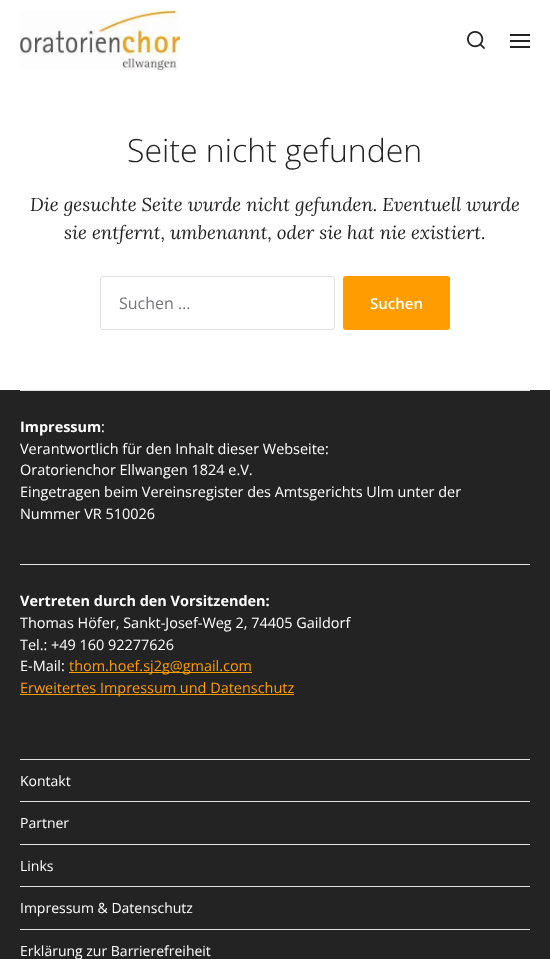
<?xml version="1.0" encoding="UTF-8"?>
<svg xmlns="http://www.w3.org/2000/svg" width="550" height="959">
    <rect width="100%" height="100%" fill="#FFFFFF"/>
    <image x="20" y="10" width="160" height="60" href="img_01.png"/>
    <image x="467" y="31" width="18" height="18" href="img_02.png"/>
    <rect x="510" y="34" width="20" height="2" fill="#232323"/>
    <rect x="510" y="40" width="20" height="2" fill="#232323"/>
    <rect x="510" y="46" width="20" height="2" fill="#232323"/>
    <text x="127" y="162" font-family="Open Sans" font-size="32" font-weight="300" fill="#232323">Seite nicht gefunden</text>
    <text x="30" y="211" font-family="Lora" font-size="18.7" font-style="italic" fill="#232323">Die gesuchte Seite wurde nicht gefunden. Eventuell wurde</text>
    <text x="64" y="239" font-family="Lora" font-size="18.7" font-style="italic" fill="#232323">sie entfernt, umbenannt, oder sie hat nie existiert.</text>
    <rect x="100.5" y="276.5" width="234" height="53" rx="2.5" fill="none" stroke="#E1E1E3"/>
    <text x="119" y="309" font-family="Open Sans" font-size="16" fill="#747579">Suchen …</text>
    <rect x="343" y="276" width="107" height="54" rx="3" fill="#FF9D00"/>
    <text x="370" y="309" font-family="Open Sans" font-size="15" font-weight="600" fill="#FFFFFF">Suchen</text>
    <rect x="0" y="390" width="550" height="569" fill="#232323"/>
    <rect x="20" y="390" width="510" height="1" fill="#E1E1E3"/>
    <text x="20" y="432" font-family="Open Sans" font-size="14.45" font-weight="700" fill="#FFFFFF">Impressum</text>
    <text x="101" y="432" font-family="Open Sans" font-size="14.45" fill="#FFFFFF">:</text>
    <text font-family="Open Sans" font-size="14.45" fill="#FFFFFF">
        <tspan x="20" y="454">Verantwortlich für den Inhalt dieser Webseite:</tspan>
        <tspan x="20" y="475">Oratorienchor Ellwangen 1824 e.V.</tspan>
        <tspan x="20" y="497">Eingetragen beim Vereinsregister des Amtsgerichts Ulm unter der</tspan>
        <tspan x="20" y="519">Nummer VR 510026</tspan>
    </text>
    <rect x="20" y="564" width="510" height="1" fill="#E1E1E3"/>
    <text x="20" y="606" font-family="Open Sans" font-size="14.45" font-weight="700" fill="#FFFFFF">Vertreten durch den Vorsitzenden:</text>
    <text font-family="Open Sans" font-size="14.45" fill="#FFFFFF">
        <tspan x="20" y="628">Thomas Höfer, Sankt-Josef-Weg 2, 74405 Gaildorf</tspan>
        <tspan x="20" y="650">Tel.: +49 160 92277626</tspan>
        <tspan x="20" y="671">E-Mail:</tspan>
    </text>
    <rect x="69" y="672" width="183" height="1" fill="#FF9D00"/>
    <text x="69" y="671" font-family="Open Sans" font-size="14.45" fill="#FF9D00">thom.hoef.sj2g@gmail.com</text>
    <rect x="20" y="694" width="274" height="1" fill="#FF9D00"/>
    <text x="20" y="693" font-family="Open Sans" font-size="14.45" fill="#FF9D00">Erweitertes Impressum und Datenschutz</text>
    <rect x="20" y="759" width="510" height="1" fill="#E1E1E3"/>
    <text x="20" y="786" font-family="Open Sans" font-size="14" fill="#FFFFFF">Kontakt</text>
    <rect x="20" y="801" width="510" height="1" fill="#E1E1E3"/>
    <text x="20" y="828" font-family="Open Sans" font-size="14" fill="#FFFFFF">Partner</text>
    <rect x="20" y="844" width="510" height="1" fill="#E1E1E3"/>
    <text x="20" y="871" font-family="Open Sans" font-size="14" fill="#FFFFFF">Links</text>
    <rect x="20" y="886" width="510" height="1" fill="#E1E1E3"/>
    <text x="20" y="913" font-family="Open Sans" font-size="14" fill="#FFFFFF">Impressum &amp; Datenschutz</text>
    <rect x="20" y="929" width="510" height="1" fill="#E1E1E3"/>
    <text x="20" y="956" font-family="Open Sans" font-size="14" fill="#FFFFFF">Erklärung zur Barrierefreiheit</text>
</svg>
